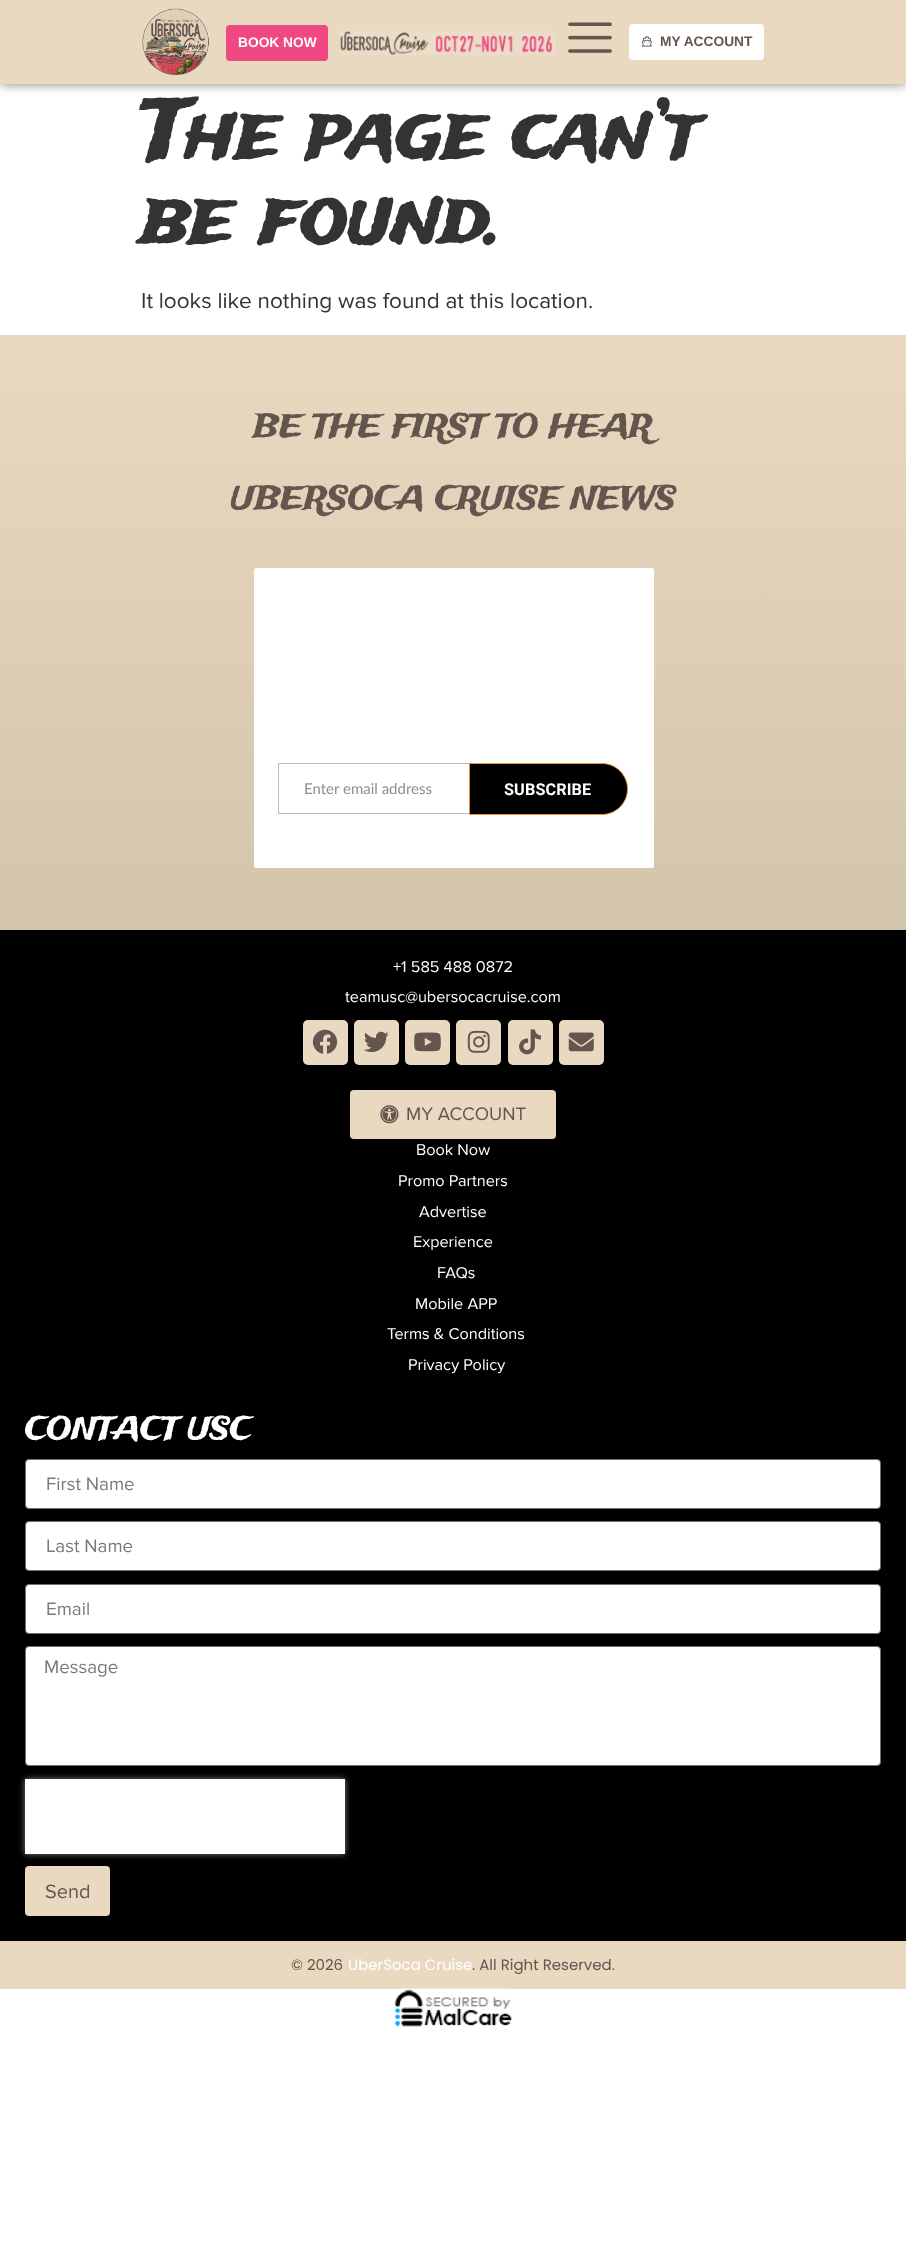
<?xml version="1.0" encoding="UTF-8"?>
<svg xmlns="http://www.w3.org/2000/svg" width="906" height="2260">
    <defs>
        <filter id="blur1" x="-50%" y="-200%" width="200%" height="500%"><feGaussianBlur stdDeviation="6"/></filter>
        <linearGradient id="g1" gradientUnits="userSpaceOnUse" x1="453" y1="335" x2="453" y2="930"><stop offset="0" stop-color="#E9D9C0"/><stop offset="1" stop-color="#D3C4AC"/></linearGradient>
        <clipPath id="clip1"><path d="M 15 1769 H 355 V 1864 H 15 Z M 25 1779 H 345 V 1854 H 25 Z" clip-rule="evenodd"/></clipPath>
        <filter id="blur2" x="-50%" y="-200%" width="200%" height="500%"><feGaussianBlur stdDeviation="3"/></filter>
    </defs>
    <rect width="100%" height="100%" fill="#FFFFFF"/>
    <rect x="0" y="0" width="906" height="84" fill="#000000" fill-opacity="0.5" filter="url(#blur1)"/>
    <rect x="0" y="0" width="906" height="84" fill="#E9D9C0"/>
    <image x="142" y="8" width="67" height="67" href="img_01.png"/>
    <rect x="226" y="25" width="102" height="36" rx="4" fill="#EF4883"/>
    <text x="238" y="47" font-family="Liberation Sans" font-size="13.75" font-weight="700" fill="#FFFFFF">BOOK NOW</text>
    <image x="339" y="31" width="217" height="24" href="img_02.png"/>
    <image x="568" y="22" width="44" height="31" href="img_03.png"/>
    <rect x="629" y="24" width="135" height="36" rx="4" fill="#FFFFFF"/>
    <image x="641" y="35" width="12" height="12" href="img_04.png"/>
    <text x="660" y="46" font-family="Liberation Sans" font-size="13.75" font-weight="700" fill="#64564F">MY ACCOUNT</text>
    <text font-family="Trade Winds" font-size="80" font-weight="700" fill="#333333">
        <tspan x="141" y="158">The page can’t</tspan>
        <tspan x="141" y="243">be found.</tspan>
    </text>
    <text x="141" y="308" font-family="Proxima Nova" font-size="22.5" fill="#333333">It looks like nothing was found at this location.</text>
    <rect x="0" y="335" width="906" height="595" fill="url(#g1)"/>
    <text x="253" y="437" font-family="Trade Winds" font-size="32.5" fill="#64564F">BE THE FIRST TO HEAR</text>
    <text x="231" y="509" font-family="Trade Winds" font-size="32.5" fill="#64564F">UBERSOCA CRUISE NEWS</text>
    <rect x="254" y="568" width="400" height="300" rx="2.5" fill="#FFFFFF"/>
    <rect x="278.5" y="763.5" width="191" height="50" fill="none" stroke="#BBBBBB"/>
    <text x="304" y="794" font-family="Lato" font-size="15" fill="#8E8E8E">Enter email address</text>
    <path d="M 469.5 763.5 H 602 C 616 763.5 627.5 775 627.5 789 C 627.5 803 616 814.5 602 814.5 H 469.5 Z" fill="#000000" stroke="#E29134"/>
    <text x="504" y="795" font-family="Roboto" font-size="16.25" font-weight="700" letter-spacing="0.1" fill="#FFFFFF">SUBSCRIBE</text>
    <rect x="0" y="930" width="906" height="1011" fill="#000000"/>
    <text x="393" y="972" font-family="Proxima Nova" font-size="16.25" fill="#FFFFFF">+1 585 488 0872</text>
    <text x="345" y="1002" font-family="Proxima Nova" font-size="16.25" fill="#FFFFFF">teamusc@ubersocacruise.com</text>
    <rect x="303" y="1020" width="45" height="45" rx="5" fill="#E9D9C0"/>
    <image x="312" y="1029" width="26" height="25" href="img_05.png"/>
    <rect x="354" y="1020" width="45" height="45" rx="5" fill="#E9D9C0"/>
    <image x="364" y="1031" width="25" height="21" href="img_06.png"/>
    <rect x="405" y="1020" width="45" height="45" rx="5" fill="#E9D9C0"/>
    <image x="414" y="1032" width="27" height="20" href="img_07.png"/>
    <rect x="456" y="1020" width="45" height="45" rx="5" fill="#E9D9C0"/>
    <image x="467" y="1030" width="23" height="23" href="img_08.png"/>
    <rect x="508" y="1020" width="45" height="45" rx="5" fill="#E9D9C0"/>
    <image x="519" y="1029" width="22" height="26" href="img_09.png"/>
    <rect x="559" y="1020" width="45" height="45" rx="5" fill="#E9D9C0"/>
    <image x="568" y="1032" width="26" height="20" href="img_10.png"/>
    <rect x="350" y="1090" width="206" height="49" rx="4" fill="#E9D9C0"/>
    <image x="380" y="1105" width="19" height="19" href="img_11.png"/>
    <text x="406" y="1120" font-family="Proxima Nova" font-size="18.75" fill="#64564F">MY ACCOUNT</text>
    <text x="416" y="1155" font-family="Proxima Nova" font-size="16.25" fill="#FFFFFF">Book Now</text>
    <text x="398" y="1186" font-family="Proxima Nova" font-size="16.25" fill="#FFFFFF">Promo Partners</text>
    <text x="419" y="1217" font-family="Proxima Nova" font-size="16.25" fill="#FFFFFF">Advertise</text>
    <text x="413" y="1247" font-family="Proxima Nova" font-size="16.25" fill="#FFFFFF">Experience</text>
    <text x="437" y="1278" font-family="Proxima Nova" font-size="16.25" fill="#FFFFFF">FAQs</text>
    <text x="415" y="1309" font-family="Proxima Nova" font-size="16.25" fill="#FFFFFF">Mobile APP</text>
    <text x="387" y="1339" font-family="Proxima Nova" font-size="16.25" fill="#FFFFFF">Terms &amp; Conditions</text>
    <text x="408" y="1370" font-family="Proxima Nova" font-size="16.25" fill="#FFFFFF">Privacy Policy</text>
    <text x="25" y="1439" font-family="Trade Winds" font-size="31.25" fill="#FFFFFF">CONTACT USC</text>
    <rect x="25.5" y="1459.5" width="855" height="49" rx="3.5" fill="#FFFFFF" stroke="#69727D"/>
    <text x="46" y="1490" font-family="Proxima Nova" font-size="18.75" fill="#797A7C">First Name</text>
    <rect x="25.5" y="1521.5" width="855" height="49" rx="3.5" fill="#FFFFFF" stroke="#69727D"/>
    <text x="46" y="1552" font-family="Proxima Nova" font-size="18.75" fill="#797A7C">Last Name</text>
    <rect x="25.5" y="1584.5" width="855" height="49" rx="3.5" fill="#FFFFFF" stroke="#69727D"/>
    <text x="46" y="1615" font-family="Proxima Nova" font-size="18.75" fill="#797A7C">Email</text>
    <rect x="25.5" y="1646.5" width="855" height="119" rx="3.5" fill="#FFFFFF" stroke="#69727D"/>
    <text x="44" y="1673" font-family="Proxima Nova" font-size="18.75" fill="#797A7C">Message</text>
    <rect x="25" y="1779" width="320" height="75" fill="#FFFFFF"/>
    <g clip-path="url(#clip1)">
        <rect x="25" y="1779" width="320" height="75" fill="#808080" filter="url(#blur2)"/>
    </g>
    <rect x="25" y="1866" width="85" height="50" rx="4" fill="#E9D9C0"/>
    <text x="45" y="1898" font-family="Proxima Nova" font-size="20" fill="#64564F">Send</text>
    <rect x="0" y="1941" width="906" height="48" fill="#E9D9C0"/>
    <text x="291" y="1970" font-family="Poppins" font-size="15" fill="#64564F">© 2026</text>
    <text x="348" y="1970" font-family="Poppins" font-size="15" fill="#FFFFFF">UberSoca Cruise</text>
    <text x="472" y="1970" font-family="Poppins" font-size="15" fill="#64564F">. All Right Reserved.</text>
    <image x="394" y="1988" width="118" height="39" href="img_12.png"/>
</svg>
